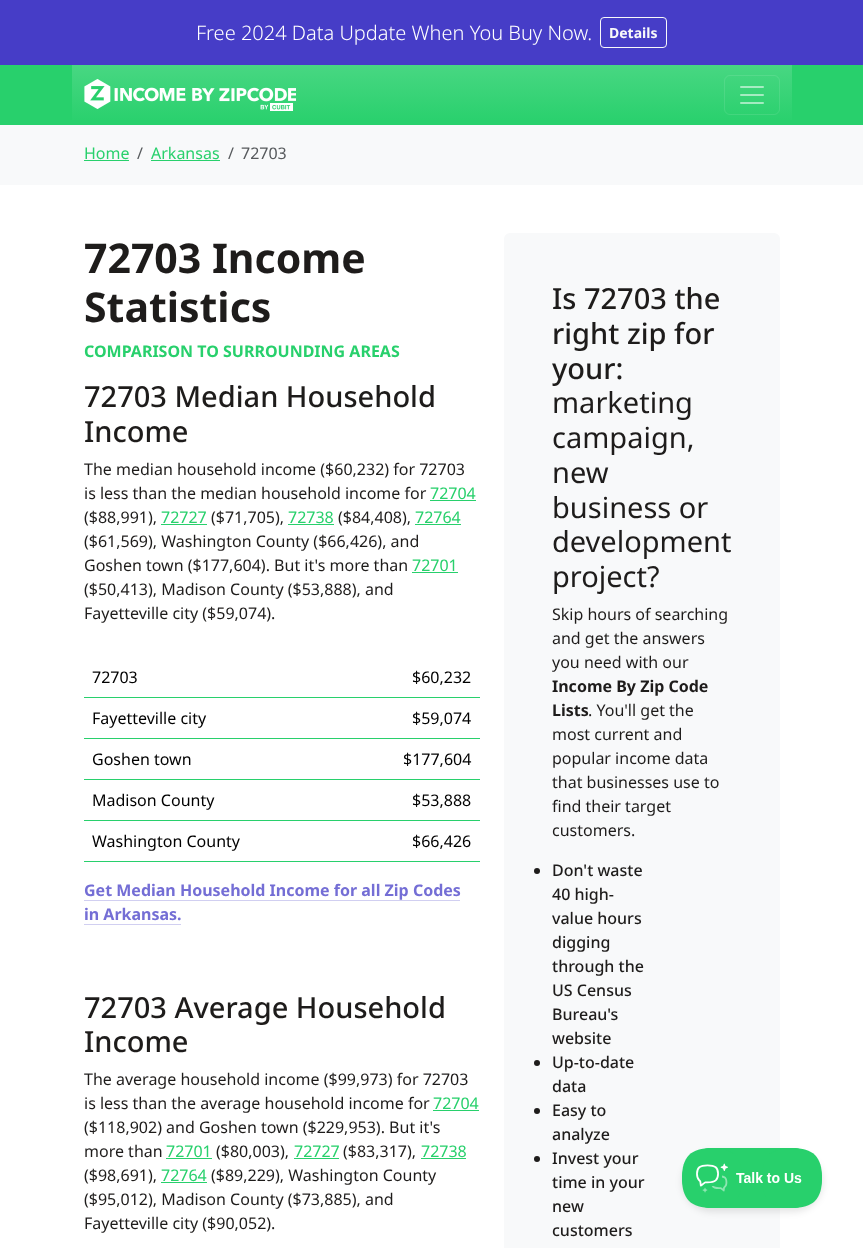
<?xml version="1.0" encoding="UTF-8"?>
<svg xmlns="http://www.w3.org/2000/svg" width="863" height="1248">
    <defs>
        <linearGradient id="g1" gradientUnits="userSpaceOnUse" x1="432" y1="65" x2="432" y2="125"><stop offset="0" stop-color="#48D782"/><stop offset="1" stop-color="#28D06C"/></linearGradient>
        <filter id="blur1" x="-50%" y="-200%" width="200%" height="500%"><feGaussianBlur stdDeviation="3.5"/></filter>
    </defs>
    <rect width="100%" height="100%" fill="#FFFFFF"/>
    <rect x="0" y="0" width="863" height="65" fill="#463DC7"/>
    <text x="196" y="40" font-family="Noto Sans" font-size="20" font-weight="300" fill="#FFFFFF">Free 2024 Data Update When You Buy Now.</text>
    <rect x="600.5" y="17.5" width="66" height="30" rx="3.5" fill="none" stroke="#F8F9FA"/>
    <text x="609" y="38" font-family="Noto Sans" font-size="14" font-weight="700" fill="#F8F9FA">Details</text>
    <rect x="0" y="65" width="863" height="60" fill="#28D06C"/>
    <rect x="72" y="65" width="720" height="55" fill="url(#g1)"/>
    <image x="84" y="79" width="212" height="32" href="img_01.png"/>
    <rect x="724.5" y="75.5" width="55" height="39" rx="5.5" fill="none" stroke="#FFFFFF" stroke-opacity="0.1"/>
    <image x="740" y="86" width="24" height="18" href="img_02.png"/>
    <rect x="0" y="125" width="863" height="60" fill="#F8F9FA"/>
    <text x="84" y="159" font-family="Noto Sans" font-size="16" fill="#28D06C">Home</text>
    <rect x="84" y="160" width="45" height="1" fill="#28D06C"/>
    <text x="137" y="159" font-family="Noto Sans" font-size="16" fill="#575A5D">/</text>
    <text x="151" y="159" font-family="Noto Sans" font-size="16" fill="#28D06C">Arkansas</text>
    <rect x="151" y="160" width="69" height="1" fill="#28D06C"/>
    <text x="228" y="159" font-family="Noto Sans" font-size="16" fill="#575A5D">/</text>
    <text x="241" y="159" font-family="Noto Sans" font-size="16" fill="#575A5D">72703</text>
    <text font-family="Noto Sans" font-size="41" font-weight="700" fill="#1E1C1B">
        <tspan x="84" y="273">72703 Income</tspan>
        <tspan x="84" y="322">Statistics</tspan>
    </text>
    <text x="84" y="357" font-family="Noto Sans" font-size="16" font-weight="700" fill="#28D06C">COMPARISON TO SURROUNDING AREAS</text>
    <text font-family="Noto Sans" font-size="29" font-weight="500" fill="#1E1C1B">
        <tspan x="84" y="407">72703 Median Household</tspan>
        <tspan x="84" y="442">Income</tspan>
    </text>
    <text font-family="Noto Sans" font-size="16" fill="#1E1C1B">
        <tspan x="84" y="475">The median household income ($60,232) for 72703</tspan>
        <tspan x="84" y="499">is less than the median household income for</tspan>
    </text>
    <text x="430" y="499" font-family="Noto Sans" font-size="16" fill="#28D06C">72704</text>
    <rect x="430" y="500" width="46" height="1" fill="#28D06C"/>
    <text x="84" y="523" font-family="Noto Sans" font-size="16" fill="#1E1C1B">($88,991),</text>
    <text x="161" y="523" font-family="Noto Sans" font-size="16" fill="#28D06C">72727</text>
    <rect x="161" y="524" width="46" height="1" fill="#28D06C"/>
    <text x="211" y="523" font-family="Noto Sans" font-size="16" fill="#1E1C1B">($71,705),</text>
    <text x="288" y="523" font-family="Noto Sans" font-size="16" fill="#28D06C">72738</text>
    <rect x="288" y="524" width="46" height="1" fill="#28D06C"/>
    <text x="338" y="523" font-family="Noto Sans" font-size="16" fill="#1E1C1B">($84,408),</text>
    <text x="415" y="523" font-family="Noto Sans" font-size="16" fill="#28D06C">72764</text>
    <rect x="415" y="524" width="46" height="1" fill="#28D06C"/>
    <text font-family="Noto Sans" font-size="16" fill="#1E1C1B">
        <tspan x="84" y="547">($61,569), Washington County ($66,426), and</tspan>
        <tspan x="84" y="571">Goshen town ($177,604). But it's more than</tspan>
    </text>
    <text x="412" y="571" font-family="Noto Sans" font-size="16" fill="#28D06C">72701</text>
    <rect x="412" y="572" width="46" height="1" fill="#28D06C"/>
    <text font-family="Noto Sans" font-size="16" fill="#1E1C1B">
        <tspan x="84" y="595">($50,413), Madison County ($53,888), and</tspan>
        <tspan x="84" y="619">Fayetteville city ($59,074).</tspan>
    </text>
    <text x="92" y="683" font-family="Noto Sans" font-size="16" fill="#000000">72703</text>
    <rect x="84" y="697" width="396" height="1" fill="#28D06C"/>
    <text x="412" y="683" font-family="Noto Sans" font-size="16" fill="#000000">$60,232</text>
    <text x="92" y="724" font-family="Noto Sans" font-size="16" fill="#000000">Fayetteville city</text>
    <rect x="84" y="738" width="396" height="1" fill="#28D06C"/>
    <text x="412" y="724" font-family="Noto Sans" font-size="16" fill="#000000">$59,074</text>
    <text x="92" y="765" font-family="Noto Sans" font-size="16" fill="#000000">Goshen town</text>
    <rect x="84" y="779" width="396" height="1" fill="#28D06C"/>
    <text x="403" y="765" font-family="Noto Sans" font-size="16" fill="#000000">$177,604</text>
    <text x="92" y="806" font-family="Noto Sans" font-size="16" fill="#000000">Madison County</text>
    <rect x="84" y="820" width="396" height="1" fill="#28D06C"/>
    <text x="412" y="806" font-family="Noto Sans" font-size="16" fill="#000000">$53,888</text>
    <text x="92" y="847" font-family="Noto Sans" font-size="16" fill="#000000">Washington County</text>
    <rect x="84" y="861" width="396" height="1" fill="#28D06C"/>
    <text x="412" y="847" font-family="Noto Sans" font-size="16" fill="#000000">$66,426</text>
    <text x="84" y="896" font-family="Noto Sans" font-size="16" font-weight="700" fill="#746ED5">Get Median Household Income for all Zip Codes</text>
    <rect x="84" y="900" width="376" height="1" fill="#D1CFF1"/>
    <text x="84" y="920" font-family="Noto Sans" font-size="16" font-weight="700" fill="#746ED5">in Arkansas.</text>
    <rect x="84" y="924" width="97" height="1" fill="#D1CFF1"/>
    <text font-family="Noto Sans" font-size="29" font-weight="500" fill="#1E1C1B">
        <tspan x="84" y="1018">72703 Average Household</tspan>
        <tspan x="84" y="1052">Income</tspan>
    </text>
    <text font-family="Noto Sans" font-size="16" fill="#1E1C1B">
        <tspan x="84" y="1085">The average household income ($99,973) for 72703</tspan>
        <tspan x="84" y="1109">is less than the average household income for</tspan>
    </text>
    <text x="433" y="1109" font-family="Noto Sans" font-size="16" fill="#28D06C">72704</text>
    <rect x="433" y="1110" width="46" height="1" fill="#28D06C"/>
    <text font-family="Noto Sans" font-size="16" fill="#1E1C1B">
        <tspan x="84" y="1133">($118,902) and Goshen town ($229,953). But it's</tspan>
        <tspan x="84" y="1157">more than</tspan>
    </text>
    <text x="166" y="1157" font-family="Noto Sans" font-size="16" fill="#28D06C">72701</text>
    <rect x="166" y="1158" width="46" height="1" fill="#28D06C"/>
    <text x="216" y="1157" font-family="Noto Sans" font-size="16" fill="#1E1C1B">($80,003),</text>
    <text x="294" y="1157" font-family="Noto Sans" font-size="16" fill="#28D06C">72727</text>
    <rect x="294" y="1158" width="45" height="1" fill="#28D06C"/>
    <text x="343" y="1157" font-family="Noto Sans" font-size="16" fill="#1E1C1B">($83,317),</text>
    <text x="421" y="1157" font-family="Noto Sans" font-size="16" fill="#28D06C">72738</text>
    <rect x="421" y="1158" width="45" height="1" fill="#28D06C"/>
    <text x="84" y="1181" font-family="Noto Sans" font-size="16" fill="#1E1C1B">($98,691),</text>
    <text x="161" y="1181" font-family="Noto Sans" font-size="16" fill="#28D06C">72764</text>
    <rect x="161" y="1182" width="46" height="1" fill="#28D06C"/>
    <text x="211" y="1181" font-family="Noto Sans" font-size="16" fill="#1E1C1B">($89,229), Washington County</text>
    <text font-family="Noto Sans" font-size="16" fill="#1E1C1B">
        <tspan x="84" y="1205">($95,012), Madison County ($73,885), and</tspan>
        <tspan x="84" y="1229">Fayetteville city ($90,052).</tspan>
    </text>
    <rect x="504" y="233" width="276" height="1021" rx="6" fill="#F8F9FA"/>
    <text font-family="Noto Sans" font-size="29" font-weight="500" fill="#1E1C1B">
        <tspan x="552" y="309">Is 72703 the</tspan>
        <tspan x="552" y="344">right zip for</tspan>
        <tspan x="552" y="379">your:</tspan>
    </text>
    <text font-family="Noto Sans" font-size="29" fill="#1E1C1B">
        <tspan x="552" y="413">marketing</tspan>
        <tspan x="552" y="448">campaign,</tspan>
        <tspan x="552" y="483">new</tspan>
        <tspan x="552" y="518">business or</tspan>
        <tspan x="552" y="552">development</tspan>
        <tspan x="552" y="587">project?</tspan>
    </text>
    <text font-family="Noto Sans" font-size="16" fill="#1E1C1B">
        <tspan x="552" y="620">Skip hours of searching</tspan>
        <tspan x="552" y="644">and get the answers</tspan>
        <tspan x="552" y="668">you need with our</tspan>
    </text>
    <text font-family="Noto Sans" font-size="16" font-weight="700" fill="#1E1C1B">
        <tspan x="552" y="692">Income By Zip Code</tspan>
        <tspan x="552" y="716">Lists</tspan>
    </text>
    <text x="588" y="716" font-family="Noto Sans" font-size="16" fill="#1E1C1B">. You'll get the</text>
    <text font-family="Noto Sans" font-size="16" fill="#1E1C1B">
        <tspan x="552" y="740">most current and</tspan>
        <tspan x="552" y="764">popular income data</tspan>
        <tspan x="552" y="788">that businesses use to</tspan>
        <tspan x="552" y="812">find their target</tspan>
        <tspan x="552" y="836">customers.</tspan>
    </text>
    <circle cx="537" cy="871" r="3" fill="#1E1C1B"/>
    <text font-family="Noto Sans" font-size="16" font-weight="500" fill="#1E1C1B">
        <tspan x="552" y="876">Don't waste</tspan>
        <tspan x="552" y="900">40 high-</tspan>
        <tspan x="552" y="924">value hours</tspan>
        <tspan x="552" y="948">digging</tspan>
        <tspan x="552" y="972">through the</tspan>
        <tspan x="552" y="996">US Census</tspan>
        <tspan x="552" y="1020">Bureau's</tspan>
        <tspan x="552" y="1044">website</tspan>
    </text>
    <circle cx="537" cy="1063" r="3" fill="#1E1C1B"/>
    <text font-family="Noto Sans" font-size="16" font-weight="500" fill="#1E1C1B">
        <tspan x="552" y="1068">Up-to-date</tspan>
        <tspan x="552" y="1092">data</tspan>
    </text>
    <circle cx="537" cy="1111" r="3" fill="#1E1C1B"/>
    <text font-family="Noto Sans" font-size="16" font-weight="500" fill="#1E1C1B">
        <tspan x="552" y="1116">Easy to</tspan>
        <tspan x="552" y="1140">analyze</tspan>
    </text>
    <circle cx="537" cy="1159" r="3" fill="#1E1C1B"/>
    <text font-family="Noto Sans" font-size="16" font-weight="500" fill="#1E1C1B">
        <tspan x="552" y="1164">Invest your</tspan>
        <tspan x="552" y="1188">time in your</tspan>
        <tspan x="552" y="1212">new</tspan>
        <tspan x="552" y="1236">customers</tspan>
    </text>
    <rect x="682" y="1152" width="141" height="60" rx="30" fill="#000000" fill-opacity="0.1" filter="url(#blur1)"/>
    <image x="682" y="1148" width="140" height="60" href="img_03.png"/>
</svg>
